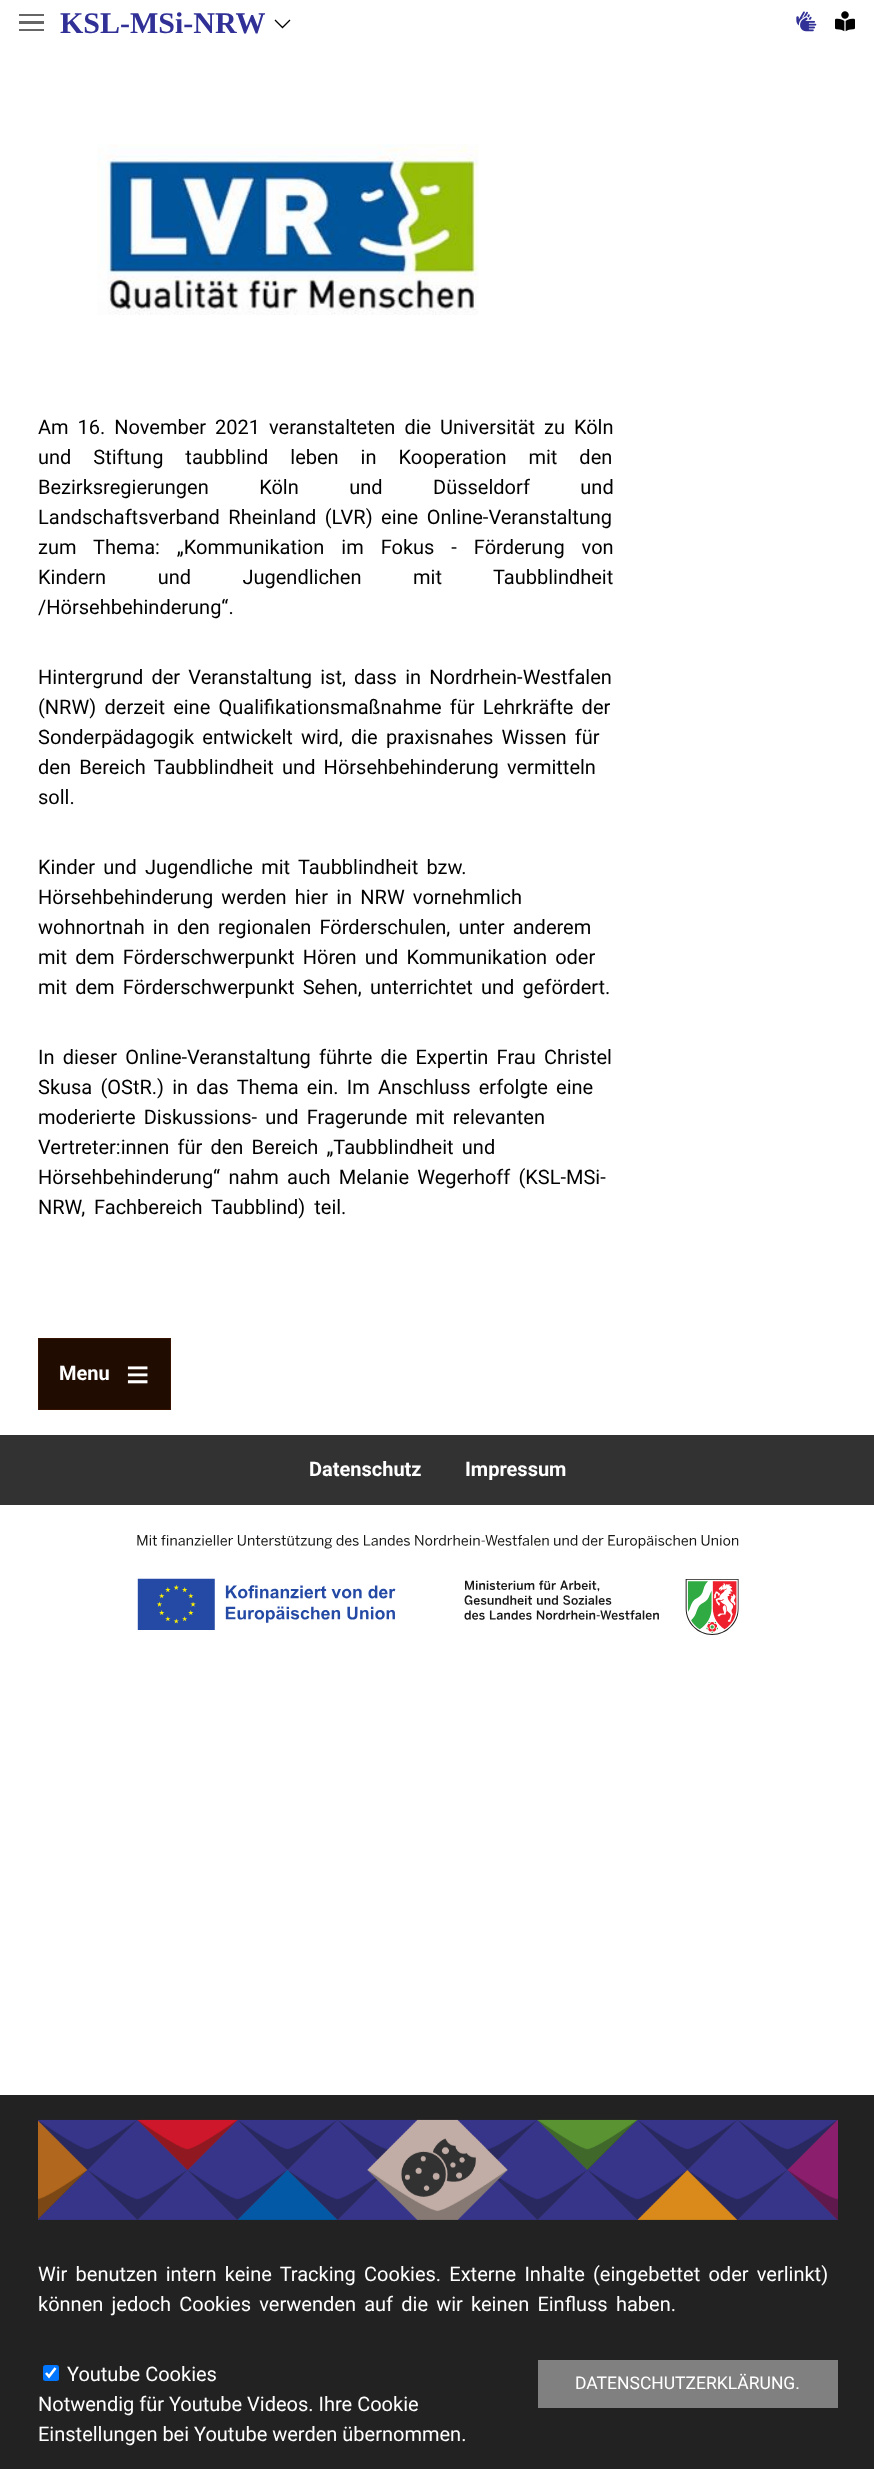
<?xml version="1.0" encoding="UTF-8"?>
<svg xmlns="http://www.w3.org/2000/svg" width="874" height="2469">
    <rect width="100%" height="100%" fill="#FFFFFF"/>
    <rect x="19" y="21" width="25" height="3" fill="#666666"/>
    <rect x="19" y="14" width="25" height="2" fill="#666666"/>
    <rect x="19" y="29" width="25" height="2" fill="#666666"/>
    <text x="60" y="33" font-family="Liberation Serif" font-size="30" font-weight="700" fill="#303097">KSL-MSi-NRW</text>
    <path d="M 290 20 L 282.5 27.5 L 275 20" fill="none" stroke="#000000" stroke-width="1.3"/>
    <image x="796" y="11" width="21" height="21" href="img_01.png"/>
    <image x="835" y="11" width="20" height="21" href="img_02.png"/>
    <image x="97" y="144" width="382" height="171" href="img_03.png"/>
    <text font-family="Roboto" font-size="20" fill="#000000">
        <tspan x="38" y="434" word-spacing="4">Am 16. November 2021 veranstalteten die Universität zu Köln</tspan>
        <tspan x="38" y="464" word-spacing="17">und Stiftung taubblind leben in Kooperation mit den</tspan>
        <tspan x="38" y="494" word-spacing="45.5">Bezirksregierungen Köln und Düsseldorf und</tspan>
        <tspan x="38" y="524" word-spacing="3.5">Landschaftsverband Rheinland (LVR) eine Online-Veranstaltung</tspan>
        <tspan x="38" y="554" word-spacing="12">zum Thema: „Kommunikation im Fokus - Förderung von</tspan>
        <tspan x="38" y="584" word-spacing="46.5">Kindern und Jugendlichen mit Taubblindheit</tspan>
        <tspan x="38" y="614">/Hörsehbehinderung“.</tspan>
    </text>
    <text font-family="Roboto" font-size="20" fill="#000000">
        <tspan x="38" y="684" word-spacing="3.25">Hintergrund der Veranstaltung ist, dass in Nordrhein-Westfalen</tspan>
        <tspan x="38" y="714" word-spacing="3.25">(NRW) derzeit eine Qualifikationsmaßnahme für Lehrkräfte der</tspan>
        <tspan x="38" y="744" word-spacing="3.25">Sonderpädagogik entwickelt wird, die praxisnahes Wissen für</tspan>
        <tspan x="38" y="774" word-spacing="3.25">den Bereich Taubblindheit und Hörsehbehinderung vermitteln</tspan>
        <tspan x="38" y="804">soll.</tspan>
    </text>
    <text font-family="Roboto" font-size="20" fill="#000000">
        <tspan x="38" y="874" word-spacing="3.25">Kinder und Jugendliche mit Taubblindheit bzw.</tspan>
        <tspan x="38" y="904" word-spacing="3.25">Hörsehbehinderung werden hier in NRW vornehmlich</tspan>
        <tspan x="38" y="934" word-spacing="3.25">wohnortnah in den regionalen Förderschulen, unter anderem</tspan>
        <tspan x="38" y="964" word-spacing="3.25">mit dem Förderschwerpunkt Hören und Kommunikation oder</tspan>
        <tspan x="38" y="994" word-spacing="3.25">mit dem Förderschwerpunkt Sehen, unterrichtet und gefördert.</tspan>
    </text>
    <text font-family="Roboto" font-size="20" fill="#000000">
        <tspan x="38" y="1064" word-spacing="3.25">In dieser Online-Veranstaltung führte die Expertin Frau Christel</tspan>
        <tspan x="38" y="1094" word-spacing="3.25">Skusa (OStR.) in das Thema ein. Im Anschluss erfolgte eine</tspan>
        <tspan x="38" y="1124" word-spacing="3.25">moderierte Diskussions- und Fragerunde mit relevanten</tspan>
        <tspan x="38" y="1154" word-spacing="3.25">Vertreter:innen für den Bereich „Taubblindheit und</tspan>
        <tspan x="38" y="1184" word-spacing="3.25">Hörsehbehinderung“ nahm auch Melanie Wegerhoff (KSL-MSi-</tspan>
        <tspan x="38" y="1214" word-spacing="4">NRW, Fachbereich Taubblind) teil.</tspan>
    </text>
    <rect x="38.5" y="1338.5" width="132" height="71" fill="#210C02" stroke="#381301"/>
    <text x="59" y="1380" font-family="Roboto" font-size="20" font-weight="700" fill="#FFFFFF">Menu</text>
    <text x="126" y="1388" font-family="Liberation Sans" font-size="40" font-weight="700" fill="#FFFFFF">≡</text>
    <rect x="0" y="1435" width="874" height="70" fill="#323232"/>
    <text x="309" y="1476" font-family="Roboto" font-size="20" font-weight="700" fill="#FFFFFF">Datenschutz</text>
    <text x="465" y="1476" font-family="Roboto" font-size="20" font-weight="700" fill="#FFFFFF">Impressum</text>
    <image x="137" y="1535" width="602" height="100" href="img_04.png"/>
    <rect x="0" y="2095" width="874" height="374" fill="#222222"/>
    <image x="38" y="2119" width="800" height="101" href="img_05.png"/>
    <text font-family="Roboto" font-size="20" fill="#FFFFFF">
        <tspan x="38" y="2281" word-spacing="3.25">Wir benutzen intern keine Tracking Cookies. Externe Inhalte (eingebettet oder verlinkt)</tspan>
        <tspan x="38" y="2311" word-spacing="3.25">können jedoch Cookies verwenden auf die wir keinen Einfluss haben.</tspan>
    </text>
    <rect x="538" y="2360" width="300" height="48" fill="#808080"/>
    <text x="575" y="2389" font-family="Roboto" font-size="17.5" fill="#FFFFFF">DATENSCHUTZERKLÄRUNG.</text>
    <rect x="43" y="2365" width="16" height="16" rx="2.5" fill="#0075FF"/>
    <path d="M 46 2373 L 49 2376.5 L 55.5 2368" fill="none" stroke="#FFFFFF" stroke-width="2.6"/>
    <text x="67" y="2381" font-family="Roboto" font-size="20" fill="#FFFFFF">Youtube Cookies</text>
    <text font-family="Roboto" font-size="20" fill="#FFFFFF">
        <tspan x="38" y="2411">Notwendig für Youtube Videos. Ihre Cookie</tspan>
        <tspan x="38" y="2441">Einstellungen bei Youtube werden übernommen.</tspan>
    </text>
</svg>
